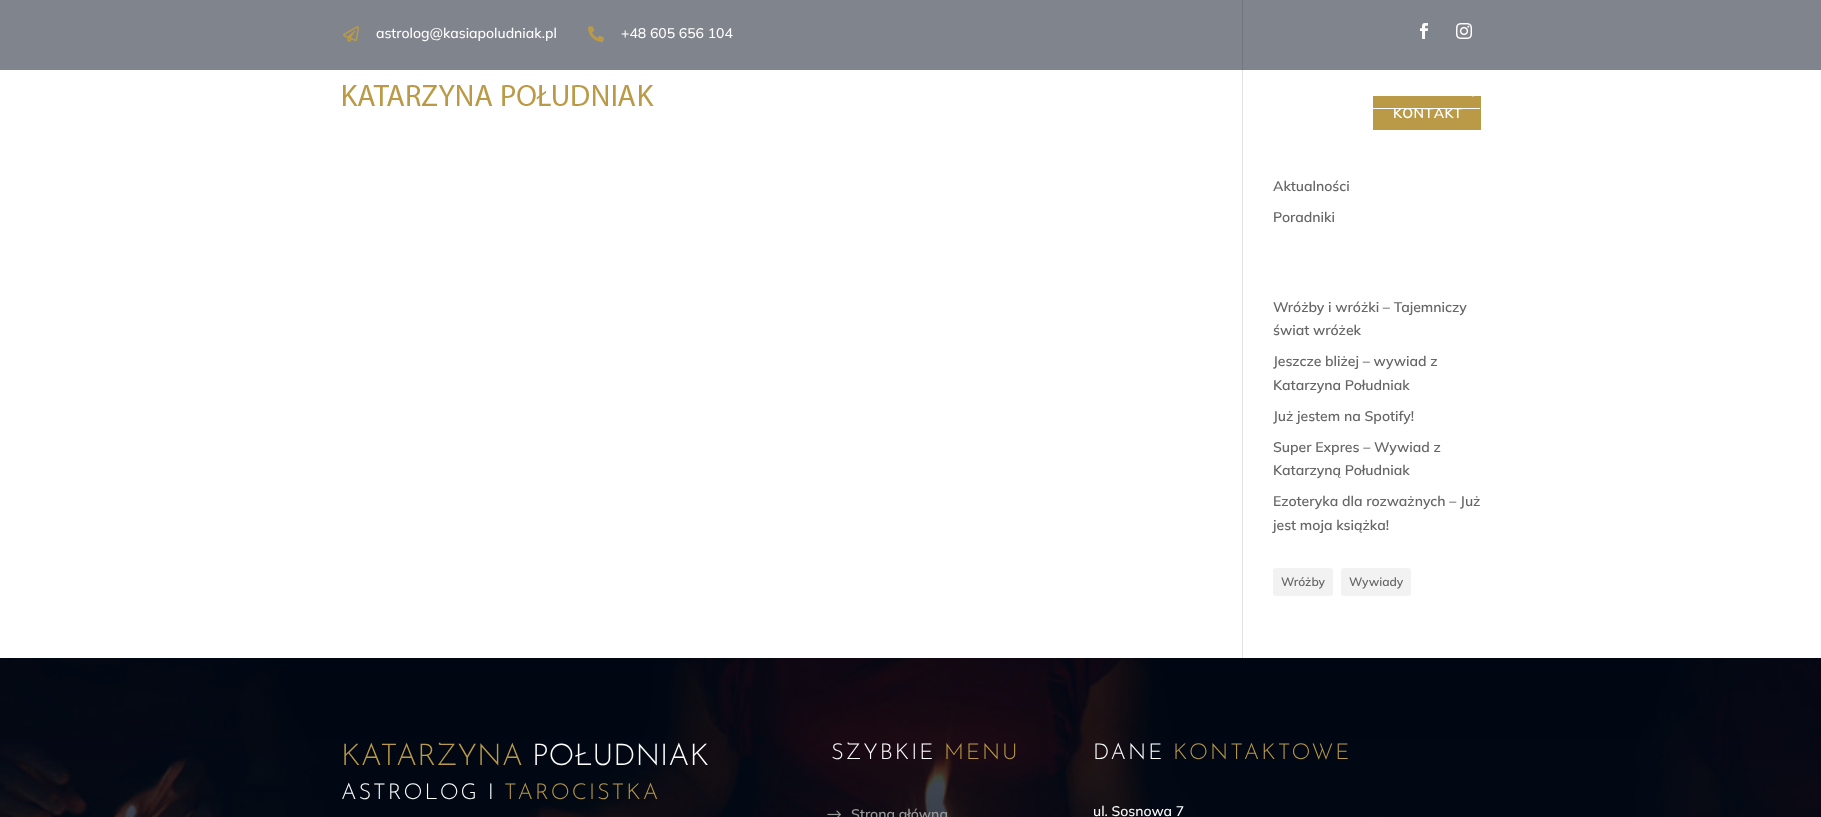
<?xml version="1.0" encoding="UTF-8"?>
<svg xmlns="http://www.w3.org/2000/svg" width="1821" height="817">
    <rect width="100%" height="100%" fill="#FFFFFF"/>
    <rect x="1242" y="0" width="1" height="658" fill="#E2E2E2"/>
    <rect x="0" y="0" width="1821" height="70" fill="#010A19" fill-opacity="0.5"/>
    <image x="343" y="26" width="16" height="16" href="img_01.png"/>
    <text x="376" y="38" font-family="Mulish" font-size="14" font-weight="500" fill="#FFFFFF">astrolog@kasiapoludniak.pl</text>
    <image x="588" y="26" width="16" height="16" href="img_02.png"/>
    <text x="621" y="38" font-family="Mulish" font-size="14" font-weight="500" fill="#FFFFFF">+48 605 656 104</text>
    <image x="1420" y="23" width="8" height="16" href="img_03.png"/>
    <image x="1456" y="23" width="16" height="16" href="img_04.png"/>
    <image x="343" y="85" width="311" height="21" href="img_05.png"/>
    <rect x="1373" y="96" width="108" height="34" fill="#BA9A47"/>
    <text x="1393" y="118" font-family="Mulish" font-size="14" font-weight="600" letter-spacing="0.5" fill="#FFFFFF">KONTAKT</text>
    <rect x="1373" y="108" width="107" height="1" fill="#FFFFFF"/>
    <image x="1472" y="96" width="2" height="1" href="img_06.png"/>
    <text x="1273" y="191" font-family="Mulish" font-size="14" font-weight="600" fill="#666666">Aktualności</text>
    <text x="1273" y="222" font-family="Mulish" font-size="14" font-weight="600" fill="#666666">Poradniki</text>
    <text font-family="Mulish" font-size="14" font-weight="600" fill="#666666">
        <tspan x="1273" y="312">Wróżby i wróżki – Tajemniczy</tspan>
        <tspan x="1273" y="335">świat wróżek</tspan>
    </text>
    <text font-family="Mulish" font-size="14" font-weight="600" fill="#666666">
        <tspan x="1273" y="366">Jeszcze bliżej – wywiad z</tspan>
        <tspan x="1273" y="390">Katarzyna Południak</tspan>
    </text>
    <text x="1273" y="421" font-family="Mulish" font-size="14" font-weight="600" fill="#666666">Już jestem na Spotify!</text>
    <text font-family="Mulish" font-size="14" font-weight="600" fill="#666666">
        <tspan x="1273" y="452">Super Expres – Wywiad z</tspan>
        <tspan x="1273" y="475">Katarzyną Południak</tspan>
    </text>
    <text font-family="Mulish" font-size="14" font-weight="600" fill="#666666">
        <tspan x="1273" y="506">Ezoteryka dla rozważnych – Już</tspan>
        <tspan x="1273" y="530">jest moja książka!</tspan>
    </text>
    <rect x="1273" y="568" width="60" height="28" rx="3" fill="#F2F2F2"/>
    <text x="1281" y="586" font-family="Mulish" font-size="12" font-weight="600" fill="#666666">Wróżby</text>
    <rect x="1341" y="568" width="70" height="28" rx="3" fill="#F2F2F2"/>
    <text x="1349" y="586" font-family="Mulish" font-size="12" font-weight="600" fill="#666666">Wywiady</text>
    <image x="0" y="658" width="1821" height="159" href="img_07.png"/>
    <text x="341" y="765" font-family="Josefin Sans" font-size="30" font-weight="300" fill="#BA9A47">KATARZYNA</text>
    <text x="532" y="765" font-family="Josefin Sans" font-size="30" font-weight="300" fill="#FFFFFF">POŁUDNIAK</text>
    <text x="341" y="799" font-family="Josefin Sans" font-size="22" font-weight="300" letter-spacing="2" fill="#FFFFFF">ASTROLOG I</text>
    <text x="504" y="799" font-family="Josefin Sans" font-size="22" font-weight="300" letter-spacing="2" fill="#BA9A47">TAROCISTKA</text>
    <text x="831" y="759" font-family="Josefin Sans" font-size="22" font-weight="300" letter-spacing="2" fill="#FFFFFF">SZYBKIE</text>
    <text x="944" y="759" font-family="Josefin Sans" font-size="22" font-weight="300" letter-spacing="2" fill="#BA9A47">MENU</text>
    <image x="827" y="810" width="14" height="7" href="img_08.png"/>
    <text x="851" y="819" font-family="Mulish" font-size="14" font-weight="600" fill="#999999">Strona główna</text>
    <text x="1093" y="759" font-family="Josefin Sans" font-size="22" font-weight="300" letter-spacing="2" fill="#FFFFFF">DANE</text>
    <text x="1173" y="759" font-family="Josefin Sans" font-size="22" font-weight="300" letter-spacing="2" fill="#BA9A47">KONTAKTOWE</text>
    <text x="1093" y="816" font-family="Mulish" font-size="14" font-weight="500" fill="#FFFFFF">ul. Sosnowa 7</text>
</svg>
